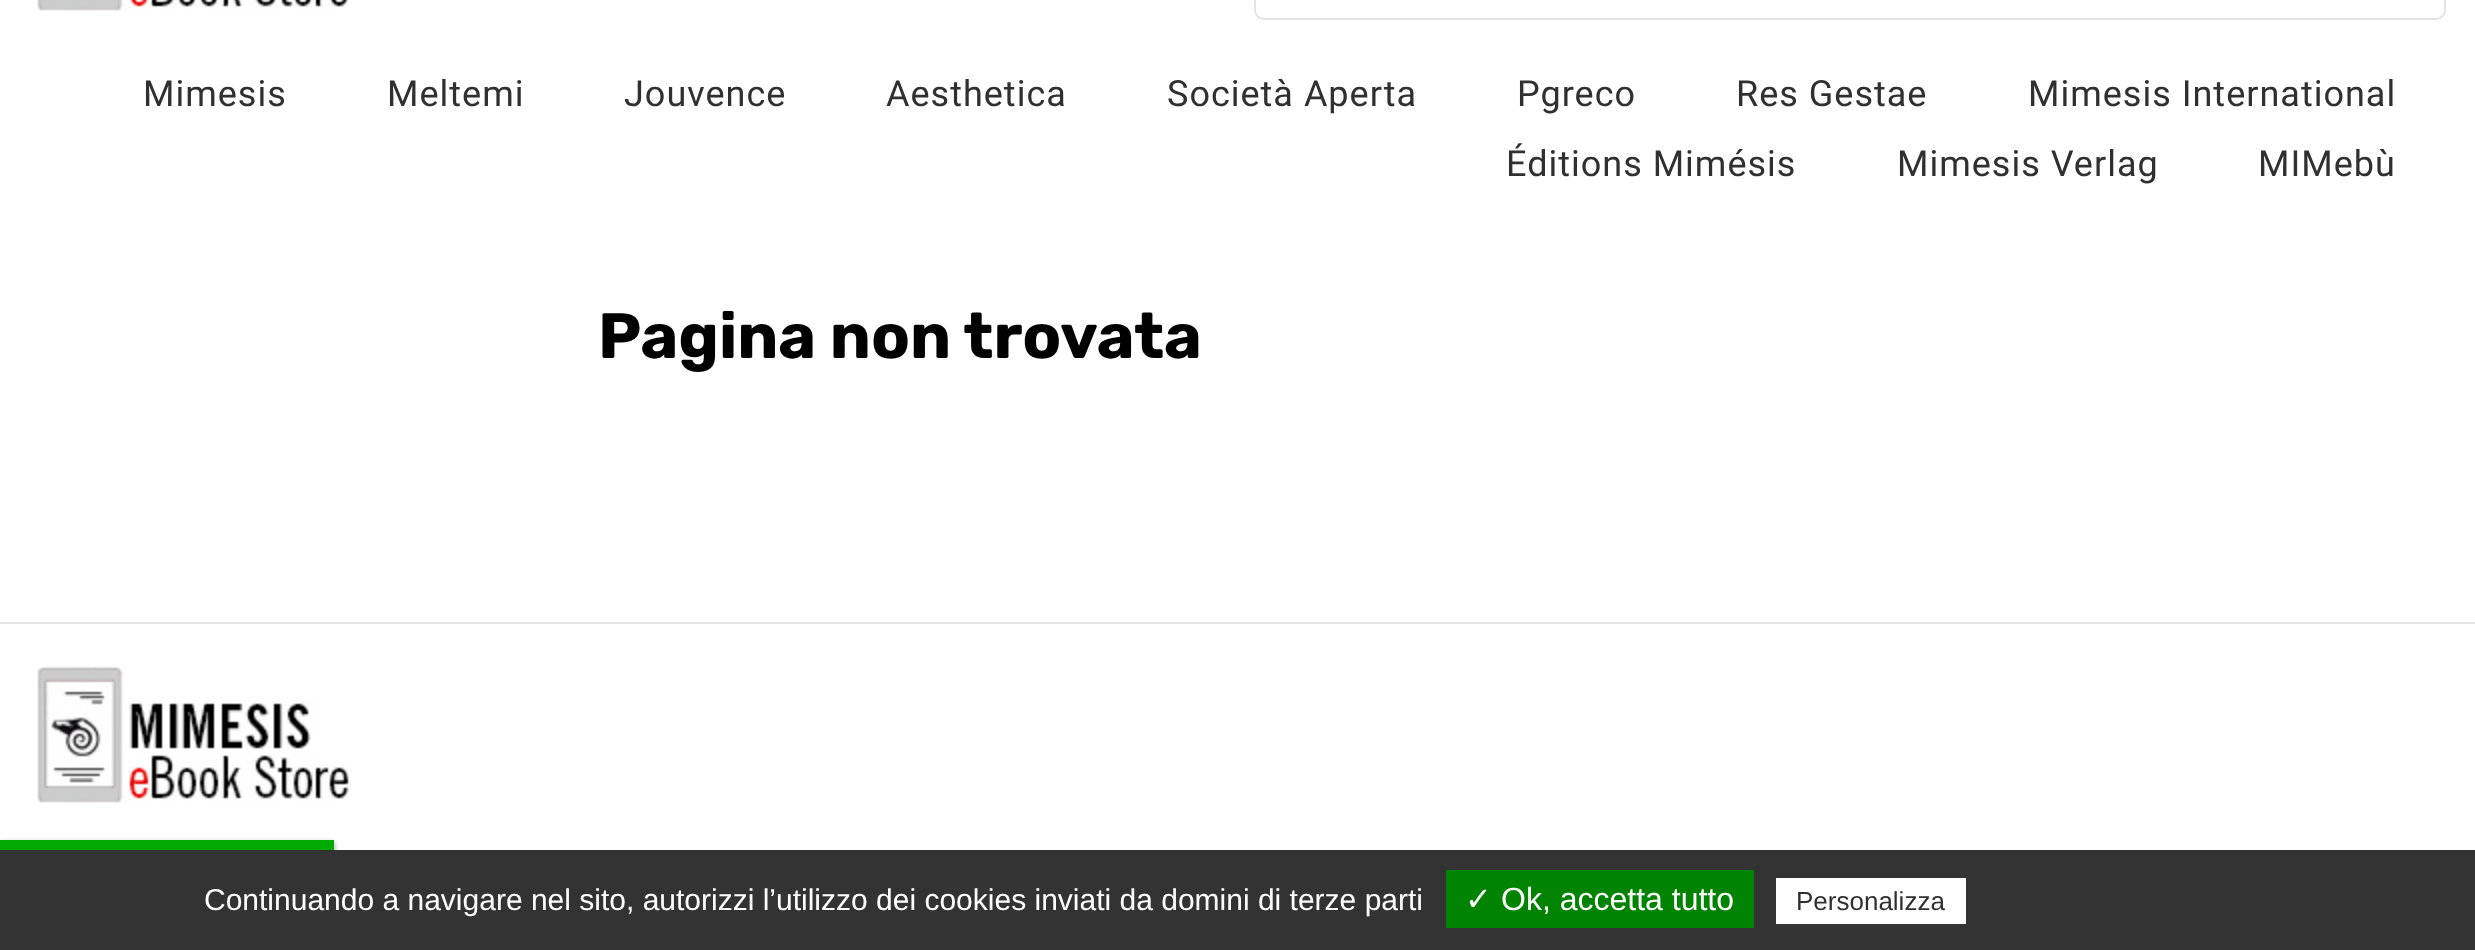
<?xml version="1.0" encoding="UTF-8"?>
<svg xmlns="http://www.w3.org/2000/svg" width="2475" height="950">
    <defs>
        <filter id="blur1" x="-50%" y="-200%" width="200%" height="500%"><feGaussianBlur stdDeviation="2"/></filter>
    </defs>
    <rect width="100%" height="100%" fill="#FFFFFF"/>
    <image x="37" y="0" width="312" height="11" href="img_01.png"/>
    <rect x="1255" y="-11" width="1190" height="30" rx="9" fill="none" stroke="#E4E4E4" stroke-width="2"/>
    <text x="143" y="106" font-family="Roboto" font-size="36" letter-spacing="1" fill="#303030">Mimesis</text>
    <text x="387" y="106" font-family="Roboto" font-size="36" letter-spacing="1" fill="#303030">Meltemi</text>
    <text x="624" y="106" font-family="Roboto" font-size="36" letter-spacing="1" fill="#303030">Jouvence</text>
    <text x="886" y="106" font-family="Roboto" font-size="36" letter-spacing="1" fill="#303030">Aesthetica</text>
    <text x="1167" y="106" font-family="Roboto" font-size="36" letter-spacing="1" fill="#303030">Società Aperta</text>
    <text x="1517" y="106" font-family="Roboto" font-size="36" letter-spacing="1" fill="#303030">Pgreco</text>
    <text x="1736" y="106" font-family="Roboto" font-size="36" letter-spacing="1" fill="#303030">Res Gestae</text>
    <text x="2028" y="106" font-family="Roboto" font-size="36" letter-spacing="1" fill="#303030">Mimesis International</text>
    <text x="1506" y="176" font-family="Roboto" font-size="36" letter-spacing="1" fill="#303030">Éditions Mimésis</text>
    <text x="1897" y="176" font-family="Roboto" font-size="36" letter-spacing="1" fill="#303030">Mimesis Verlag</text>
    <text x="2258" y="176" font-family="Roboto" font-size="36" letter-spacing="1" fill="#303030">MIMebù</text>
    <text x="598" y="358" font-family="Rubik" font-size="64" font-weight="700" fill="#000000">Pagina non trovata</text>
    <rect x="0" y="622" width="2475" height="2" fill="#E4E4E4"/>
    <image x="37" y="666" width="312" height="137" href="img_02.png"/>
    <rect x="0" y="842" width="334" height="10" fill="#555555" filter="url(#blur1)"/>
    <rect x="0" y="840" width="334" height="10" fill="#FFFFFF" filter="url(#blur1)"/>
    <rect x="0" y="840" width="334" height="10" fill="#00AA00"/>
    <rect x="0" y="850" width="2475" height="100" fill="#333333"/>
    <text x="204" y="910" font-family="Liberation Sans" font-size="30" fill="#FFFFFF">Continuando a navigare nel sito, autorizzi l’utilizzo dei cookies inviati da domini di terze parti</text>
    <rect x="1446" y="870" width="308" height="58" fill="#008300"/>
    <text x="1465" y="910" font-family="DejaVu Sans" font-size="32" fill="#FFFFFF">✓</text>
    <text x="1501" y="910" font-family="Liberation Sans" font-size="32" fill="#FFFFFF">Ok, accetta tutto</text>
    <rect x="1776" y="878" width="190" height="46" fill="#FFFFFF"/>
    <text x="1796" y="910" font-family="Liberation Sans" font-size="26" fill="#303030">Personalizza</text>
</svg>
